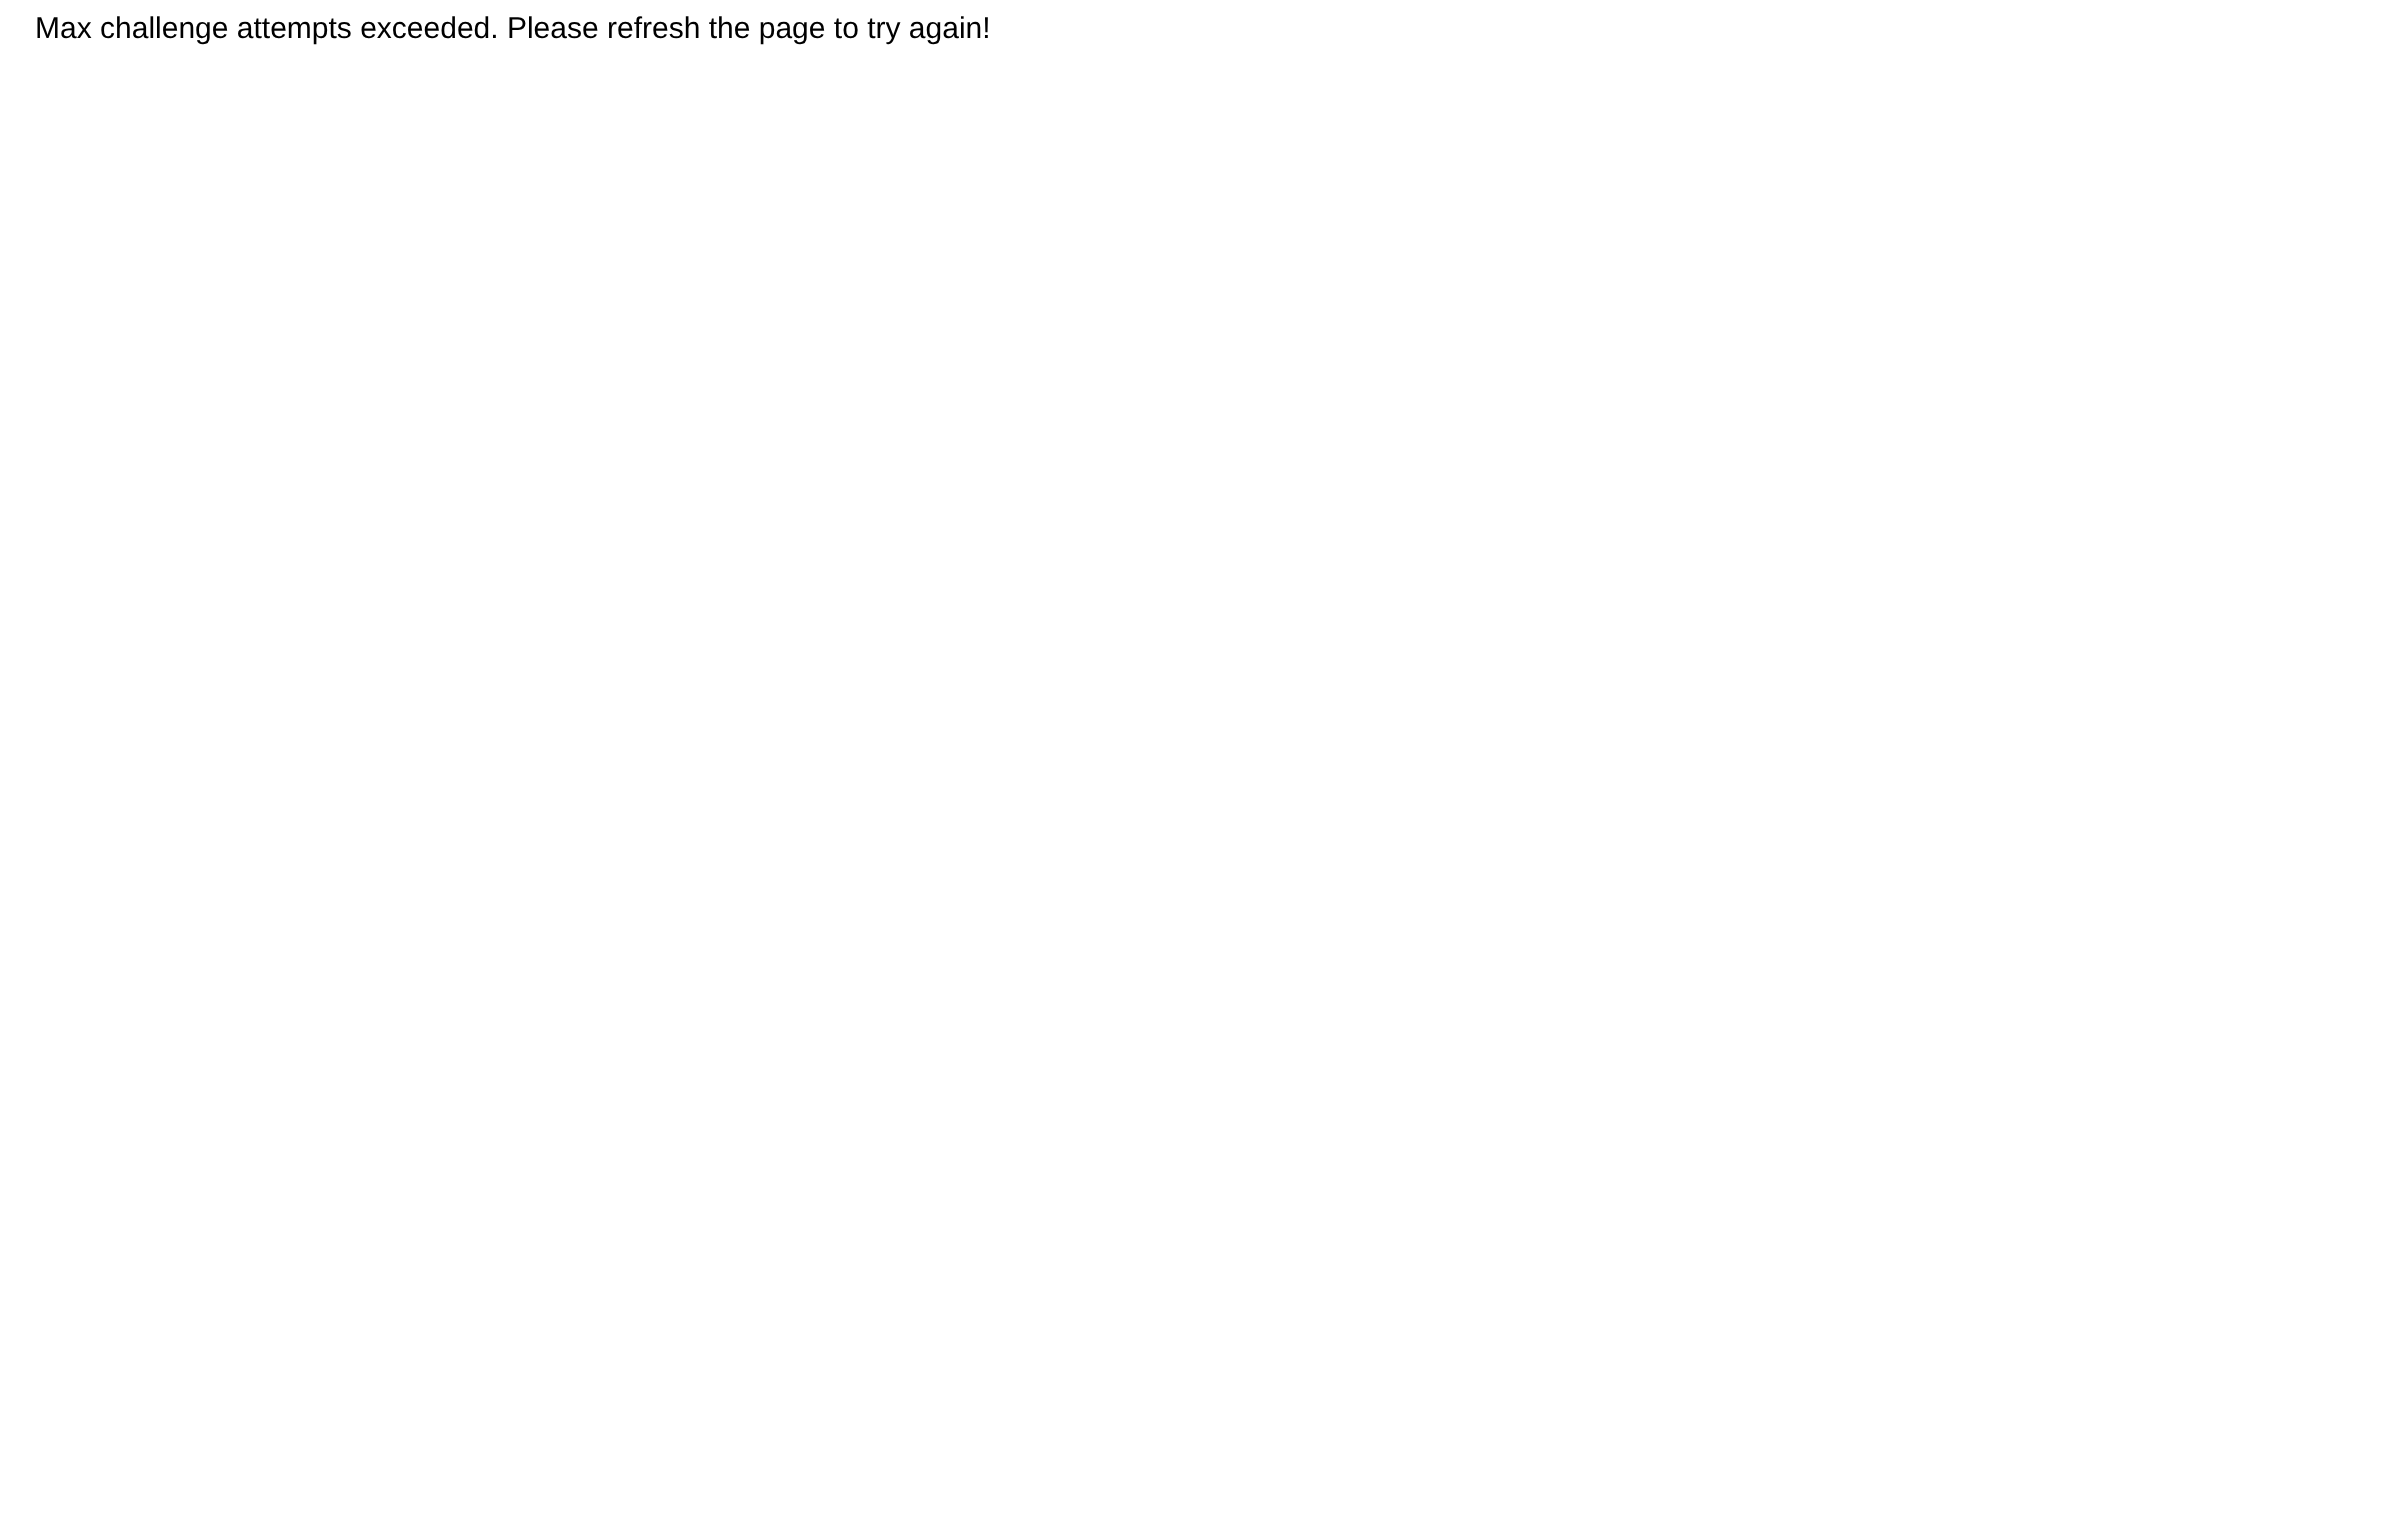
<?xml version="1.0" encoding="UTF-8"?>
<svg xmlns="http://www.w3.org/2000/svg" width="2382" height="1519">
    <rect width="100%" height="100%" fill="#FFFFFF"/>
    <text x="35" y="38" font-family="Liberation Sans" font-size="30" fill="#000000">Max challenge attempts exceeded. Please refresh the page to try again!</text>
</svg>
